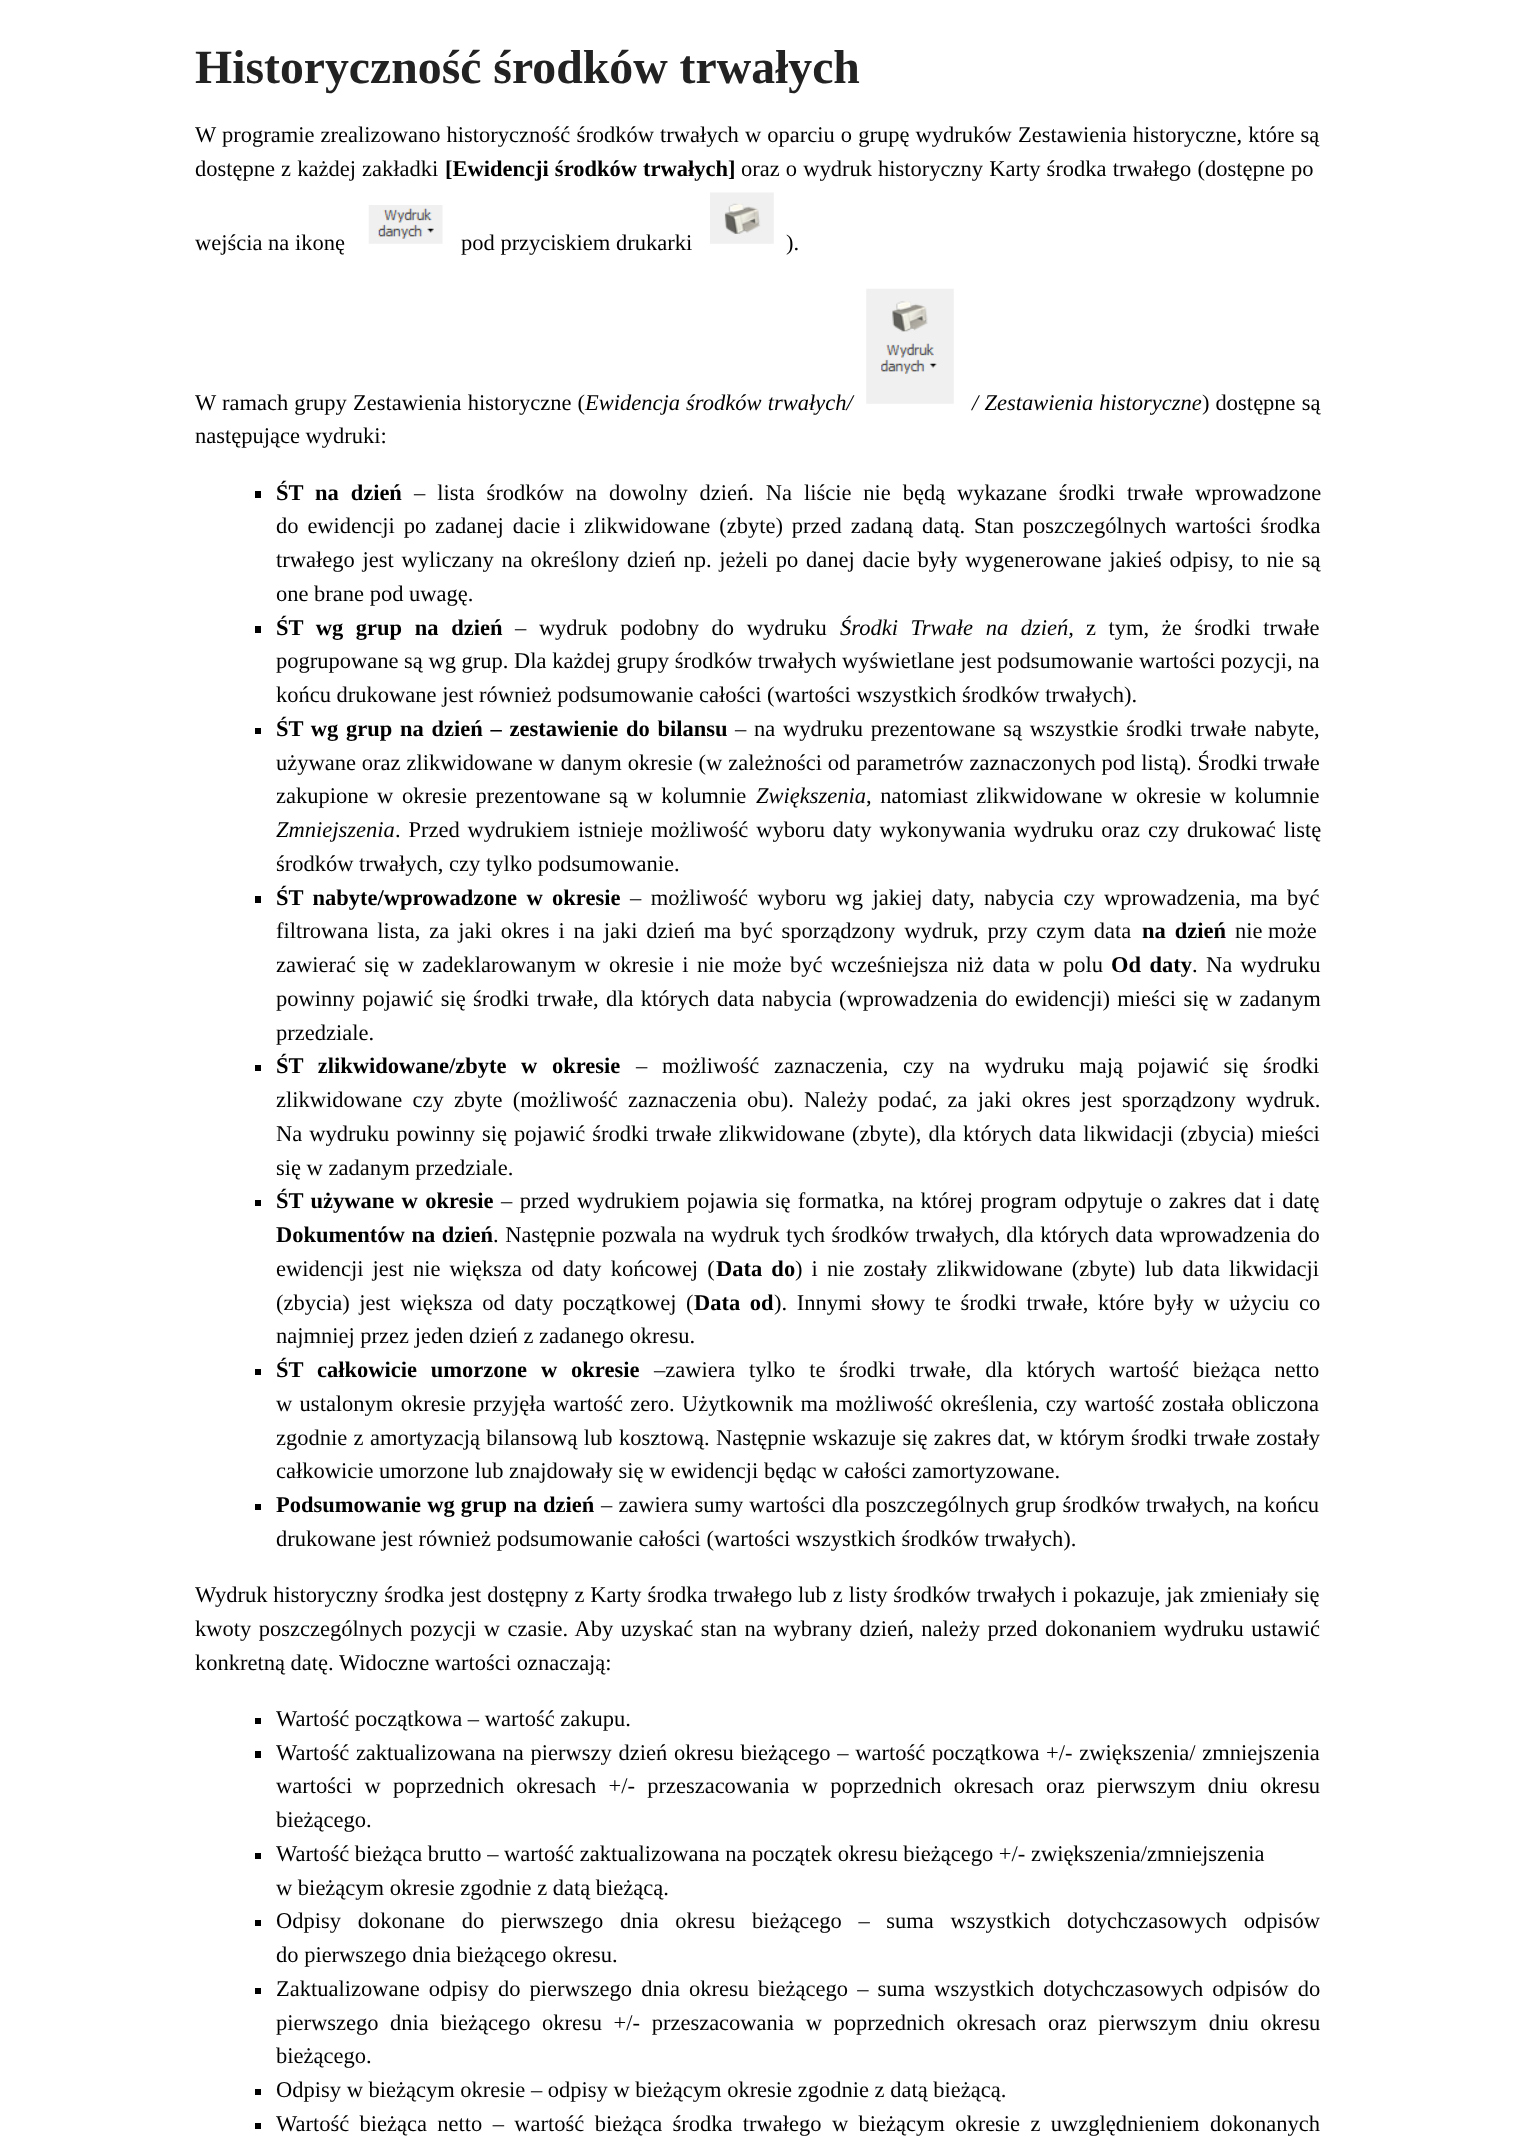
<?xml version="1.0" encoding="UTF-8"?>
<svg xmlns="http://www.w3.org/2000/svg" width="1515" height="2138">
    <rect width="100%" height="100%" fill="#FFFFFF"/>
    <text x="195" y="83" font-family="Liberation Serif" font-size="47.75" font-weight="700" fill="#222222">Historyczność środków trwałych</text>
    <text font-family="Liberation Serif" font-size="22.5" fill="#000000">
        <tspan x="195" y="142" word-spacing="0.5">W programie zrealizowano historyczność środków trwałych w oparciu o grupę wydruków Zestawienia historyczne, które są</tspan>
        <tspan x="195" y="176" word-spacing="0.5">dostępne z każdej zakładki</tspan>
    </text>
    <text x="445" y="176" word-spacing="0.5" font-family="Liberation Serif" font-size="22.5" font-weight="700" fill="#000000">[Ewidencji środków trwałych]</text>
    <text x="741" y="176" word-spacing="0.5" font-family="Liberation Serif" font-size="22.5" fill="#000000">oraz o wydruk historyczny Karty środka trwałego (dostępne po</text>
    <text x="195" y="250" font-family="Liberation Serif" font-size="22.5" fill="#000000">wejścia na ikonę</text>
    <image x="368" y="205" width="75" height="39" href="img_01.png"/>
    <text x="461" y="250" font-family="Liberation Serif" font-size="22.5" fill="#000000">pod przyciskiem drukarki</text>
    <image x="710" y="192" width="64" height="52" href="img_02.png"/>
    <text x="786" y="250" font-family="Liberation Serif" font-size="22.5" fill="#000000">).</text>
    <text x="195" y="410" word-spacing="0.5" font-family="Liberation Serif" font-size="22.5" fill="#000000">W ramach grupy Zestawienia historyczne (</text>
    <text x="585" y="410" word-spacing="0.5" font-family="Liberation Serif" font-size="22.5" font-style="italic" fill="#000000">Ewidencja środków trwałych/</text>
    <image x="866" y="288" width="88" height="116" href="img_03.png"/>
    <text x="972" y="410" word-spacing="0.5" font-family="Liberation Serif" font-size="22.5" font-style="italic" fill="#000000">/ Zestawienia historyczne</text>
    <text x="1202" y="410" word-spacing="0.5" font-family="Liberation Serif" font-size="22.5" fill="#000000">) dostępne są</text>
    <text x="195" y="443" font-family="Liberation Serif" font-size="22.5" fill="#000000">następujące wydruki:</text>
    <rect x="255" y="491" width="6" height="7" fill="#000000"/>
    <text x="276" y="500" word-spacing="6.25" font-family="Liberation Serif" font-size="22.5" font-weight="700" fill="#000000">ŚT na dzień</text>
    <text x="414" y="500" word-spacing="6.25" font-family="Liberation Serif" font-size="22.5" fill="#000000">– lista środków na dowolny dzień. Na liście nie będą wykazane środki trwałe wprowadzone</text>
    <text font-family="Liberation Serif" font-size="22.5" fill="#000000">
        <tspan x="276" y="533" word-spacing="3.25">do ewidencji po zadanej dacie i zlikwidowane (zbyte) przed zadaną datą. Stan poszczególnych wartości środka</tspan>
        <tspan x="276" y="567" word-spacing="2.1">trwałego jest wyliczany na określony dzień np. jeżeli po danej dacie były wygenerowane jakieś odpisy, to nie są</tspan>
        <tspan x="276" y="601">one brane pod uwagę.</tspan>
    </text>
    <rect x="255" y="626" width="6" height="7" fill="#000000"/>
    <text x="276" y="635" word-spacing="7" font-family="Liberation Serif" font-size="22.5" font-weight="700" fill="#000000">ŚT wg grup na dzień</text>
    <text x="515" y="635" word-spacing="7" font-family="Liberation Serif" font-size="22.5" fill="#000000">– wydruk podobny do wydruku</text>
    <text x="840" y="635" word-spacing="7" font-family="Liberation Serif" font-size="22.5" font-style="italic" fill="#000000">Środki Trwałe na dzień,</text>
    <text x="1086" y="635" word-spacing="7" font-family="Liberation Serif" font-size="22.5" fill="#000000">z tym, że środki trwałe</text>
    <text font-family="Liberation Serif" font-size="22.5" fill="#000000">
        <tspan x="276" y="668">pogrupowane są wg grup. Dla każdej grupy środków trwałych wyświetlane jest podsumowanie wartości pozycji, na</tspan>
        <tspan x="276" y="702">końcu drukowane jest również podsumowanie całości (wartości wszystkich środków trwałych).</tspan>
    </text>
    <rect x="255" y="728" width="6" height="6" fill="#000000"/>
    <text x="276" y="736" word-spacing="2.1" font-family="Liberation Serif" font-size="22.5" font-weight="700" fill="#000000">ŚT wg grup na dzień – zestawienie do bilansu</text>
    <text x="735" y="736" word-spacing="2.1" font-family="Liberation Serif" font-size="22.5" fill="#000000">– na wydruku prezentowane są wszystkie środki trwałe nabyte,</text>
    <text font-family="Liberation Serif" font-size="22.5" fill="#000000">
        <tspan x="276" y="770" word-spacing="0.25">używane oraz zlikwidowane w danym okresie (w zależności od parametrów zaznaczonych pod listą). Środki trwałe</tspan>
        <tspan x="276" y="803" word-spacing="3">zakupione w okresie prezentowane są w kolumnie</tspan>
    </text>
    <text x="756" y="803" font-family="Liberation Serif" font-size="22.5" font-style="italic" fill="#000000">Zwiększenia</text>
    <text x="866" y="803" word-spacing="3" font-family="Liberation Serif" font-size="22.5" fill="#000000">, natomiast zlikwidowane w okresie w kolumnie</text>
    <text x="276" y="837" font-family="Liberation Serif" font-size="22.5" font-style="italic" fill="#000000">Zmniejszenia</text>
    <text x="395" y="837" word-spacing="2.25" font-family="Liberation Serif" font-size="22.5" fill="#000000">. Przed wydrukiem istnieje możliwość wyboru daty wykonywania wydruku oraz czy drukować listę</text>
    <text x="276" y="871" font-family="Liberation Serif" font-size="22.5" fill="#000000">środków trwałych, czy tylko podsumowanie.</text>
    <rect x="255" y="896" width="6" height="7" fill="#000000"/>
    <text x="276" y="905" word-spacing="3.75" font-family="Liberation Serif" font-size="22.5" font-weight="700" fill="#000000">ŚT nabyte/wprowadzone w okresie</text>
    <text x="630" y="905" word-spacing="3.75" font-family="Liberation Serif" font-size="22.5" fill="#000000">– możliwość wyboru wg jakiej daty, nabycia czy wprowadzenia, ma być</text>
    <text x="276" y="938" word-spacing="3.25" font-family="Liberation Serif" font-size="22.5" fill="#000000">filtrowana lista, za jaki okres i na jaki dzień ma być sporządzony wydruk, przy czym data</text>
    <text x="1142" y="938" word-spacing="3.25" font-family="Liberation Serif" font-size="22.5" font-weight="700" fill="#000000">na dzień</text>
    <text x="1235" y="938" font-family="Liberation Serif" font-size="22.5" fill="#000000">nie może</text>
    <text x="276" y="972" word-spacing="2.75" font-family="Liberation Serif" font-size="22.5" fill="#000000">zawierać się w zadeklarowanym w okresie i nie może być wcześniejsza niż data w polu</text>
    <text x="1111" y="972" word-spacing="2.75" font-family="Liberation Serif" font-size="22.5" font-weight="700" fill="#000000">Od daty</text>
    <text x="1192" y="972" word-spacing="2.75" font-family="Liberation Serif" font-size="22.5" fill="#000000">. Na wydruku</text>
    <text font-family="Liberation Serif" font-size="22.5" fill="#000000">
        <tspan x="276" y="1006" word-spacing="1.75">powinny pojawić się środki trwałe, dla których data nabycia (wprowadzenia do ewidencji) mieści się w zadanym</tspan>
        <tspan x="276" y="1040">przedziale.</tspan>
    </text>
    <rect x="255" y="1065" width="6" height="6" fill="#000000"/>
    <text x="276" y="1073" word-spacing="9" font-family="Liberation Serif" font-size="22.5" font-weight="700" fill="#000000">ŚT zlikwidowane/zbyte w okresie</text>
    <text x="636" y="1073" word-spacing="9" font-family="Liberation Serif" font-size="22.5" fill="#000000">– możliwość zaznaczenia, czy na wydruku mają pojawić się środki</text>
    <text font-family="Liberation Serif" font-size="22.5" fill="#000000">
        <tspan x="276" y="1107" word-spacing="4.6">zlikwidowane czy zbyte (możliwość zaznaczenia obu). Należy podać, za jaki okres jest sporządzony wydruk.</tspan>
        <tspan x="276" y="1141" word-spacing="1.4">Na wydruku powinny się pojawić środki trwałe zlikwidowane (zbyte), dla których data likwidacji (zbycia) mieści</tspan>
        <tspan x="276" y="1175">się w zadanym przedziale.</tspan>
    </text>
    <rect x="255" y="1200" width="6" height="6" fill="#000000"/>
    <text x="276" y="1208" word-spacing="1.75" font-family="Liberation Serif" font-size="22.5" font-weight="700" fill="#000000">ŚT używane w okresie</text>
    <text x="501" y="1208" word-spacing="1.75" font-family="Liberation Serif" font-size="22.5" fill="#000000">– przed wydrukiem pojawia się formatka, na której program odpytuje o zakres dat i datę</text>
    <text x="276" y="1242" word-spacing="1" font-family="Liberation Serif" font-size="22.5" font-weight="700" fill="#000000">Dokumentów na dzień</text>
    <text x="493" y="1242" word-spacing="0.9" font-family="Liberation Serif" font-size="22.5" fill="#000000">. Następnie pozwala na wydruk tych środków trwałych, dla których data wprowadzenia do</text>
    <text x="276" y="1276" word-spacing="3.5" font-family="Liberation Serif" font-size="22.5" fill="#000000">ewidencji jest nie większa od daty końcowej (</text>
    <text x="716" y="1276" word-spacing="3.5" font-family="Liberation Serif" font-size="22.5" font-weight="700" fill="#000000">Data do</text>
    <text x="795" y="1276" word-spacing="3.5" font-family="Liberation Serif" font-size="22.5" fill="#000000">) i nie zostały zlikwidowane (zbyte) lub data likwidacji</text>
    <text x="276" y="1310" word-spacing="4" font-family="Liberation Serif" font-size="22.5" fill="#000000">(zbycia) jest większa od daty początkowej (</text>
    <text x="694" y="1310" word-spacing="4" font-family="Liberation Serif" font-size="22.5" font-weight="700" fill="#000000">Data od</text>
    <text x="774" y="1310" word-spacing="4" font-family="Liberation Serif" font-size="22.5" fill="#000000">). Innymi słowy te środki trwałe, które były w użyciu co</text>
    <text x="276" y="1343" font-family="Liberation Serif" font-size="22.5" fill="#000000">najmniej przez jeden dzień z zadanego okresu.</text>
    <rect x="255" y="1369" width="6" height="6" fill="#000000"/>
    <text x="276" y="1377" word-spacing="8.25" font-family="Liberation Serif" font-size="22.5" font-weight="700" fill="#000000">ŚT całkowicie umorzone w okresie</text>
    <text x="654" y="1377" word-spacing="8.25" font-family="Liberation Serif" font-size="22.5" fill="#000000">–zawiera tylko te środki trwałe, dla których wartość bieżąca netto</text>
    <text font-family="Liberation Serif" font-size="22.5" fill="#000000">
        <tspan x="276" y="1411" word-spacing="1.75">w ustalonym okresie przyjęła wartość zero. Użytkownik ma możliwość określenia, czy wartość została obliczona</tspan>
        <tspan x="276" y="1445" word-spacing="0.75">zgodnie z amortyzacją bilansową lub kosztową. Następnie wskazuje się zakres dat, w którym środki trwałe zostały</tspan>
        <tspan x="276" y="1478">całkowicie umorzone lub znajdowały się w ewidencji będąc w całości zamortyzowane.</tspan>
    </text>
    <rect x="255" y="1504" width="6" height="6" fill="#000000"/>
    <text x="276" y="1512" word-spacing="0.5" font-family="Liberation Serif" font-size="22.5" font-weight="700" fill="#000000">Podsumowanie wg grup na dzień</text>
    <text x="601" y="1512" word-spacing="0.5" font-family="Liberation Serif" font-size="22.5" fill="#000000">– zawiera sumy wartości dla poszczególnych grup środków trwałych, na końcu</text>
    <text x="276" y="1546" font-family="Liberation Serif" font-size="22.5" fill="#000000">drukowane jest również podsumowanie całości (wartości wszystkich środków trwałych).</text>
    <text font-family="Liberation Serif" font-size="22.5" fill="#000000">
        <tspan x="195" y="1602" word-spacing="0.3">Wydruk historyczny środka jest dostępny z Karty środka trwałego lub z listy środków trwałych i pokazuje, jak zmieniały się</tspan>
        <tspan x="195" y="1636" word-spacing="1.9">kwoty poszczególnych pozycji w czasie. Aby uzyskać stan na wybrany dzień, należy przed dokonaniem wydruku ustawić</tspan>
        <tspan x="195" y="1670">konkretną datę. Widoczne wartości oznaczają:</tspan>
    </text>
    <rect x="255" y="1718" width="6" height="6" fill="#000000"/>
    <text x="276" y="1726" font-family="Liberation Serif" font-size="22.5" fill="#000000">Wartość początkowa – wartość zakupu.</text>
    <rect x="255" y="1751" width="6" height="7" fill="#000000"/>
    <text font-family="Liberation Serif" font-size="22.5" fill="#000000">
        <tspan x="276" y="1760" word-spacing="1.1">Wartość zaktualizowana na pierwszy dzień okresu bieżącego – wartość początkowa +/- zwiększenia/ zmniejszenia</tspan>
        <tspan x="276" y="1793" word-spacing="6.6">wartości w poprzednich okresach +/- przeszacowania w poprzednich okresach oraz pierwszym dniu okresu</tspan>
        <tspan x="276" y="1827">bieżącego.</tspan>
    </text>
    <rect x="255" y="1853" width="6" height="6" fill="#000000"/>
    <text font-family="Liberation Serif" font-size="22.5" fill="#000000">
        <tspan x="276" y="1861">Wartość bieżąca brutto – wartość zaktualizowana na początek okresu bieżącego +/- zwiększenia/zmniejszenia</tspan>
        <tspan x="276" y="1895">w bieżącym okresie zgodnie z datą bieżącą.</tspan>
    </text>
    <rect x="255" y="1920" width="6" height="6" fill="#000000"/>
    <text font-family="Liberation Serif" font-size="22.5" fill="#000000">
        <tspan x="276" y="1928" word-spacing="11">Odpisy dokonane do pierwszego dnia okresu bieżącego – suma wszystkich dotychczasowych odpisów</tspan>
        <tspan x="276" y="1962">do pierwszego dnia bieżącego okresu.</tspan>
    </text>
    <rect x="255" y="1988" width="6" height="6" fill="#000000"/>
    <text font-family="Liberation Serif" font-size="22.5" fill="#000000">
        <tspan x="276" y="1996" word-spacing="3.5">Zaktualizowane odpisy do pierwszego dnia okresu bieżącego – suma wszystkich dotychczasowych odpisów do</tspan>
        <tspan x="276" y="2030" word-spacing="6">pierwszego dnia bieżącego okresu +/- przeszacowania w poprzednich okresach oraz pierwszym dniu okresu</tspan>
        <tspan x="276" y="2063">bieżącego.</tspan>
    </text>
    <rect x="255" y="2089" width="6" height="6" fill="#000000"/>
    <text x="276" y="2097" font-family="Liberation Serif" font-size="22.5" fill="#000000">Odpisy w bieżącym okresie – odpisy w bieżącym okresie zgodnie z datą bieżącą.</text>
    <rect x="255" y="2123" width="6" height="6" fill="#000000"/>
    <text x="276" y="2131" word-spacing="4.75" font-family="Liberation Serif" font-size="22.5" fill="#000000">Wartość bieżąca netto – wartość bieżąca środka trwałego w bieżącym okresie z uwzględnieniem dokonanych</text>
</svg>
